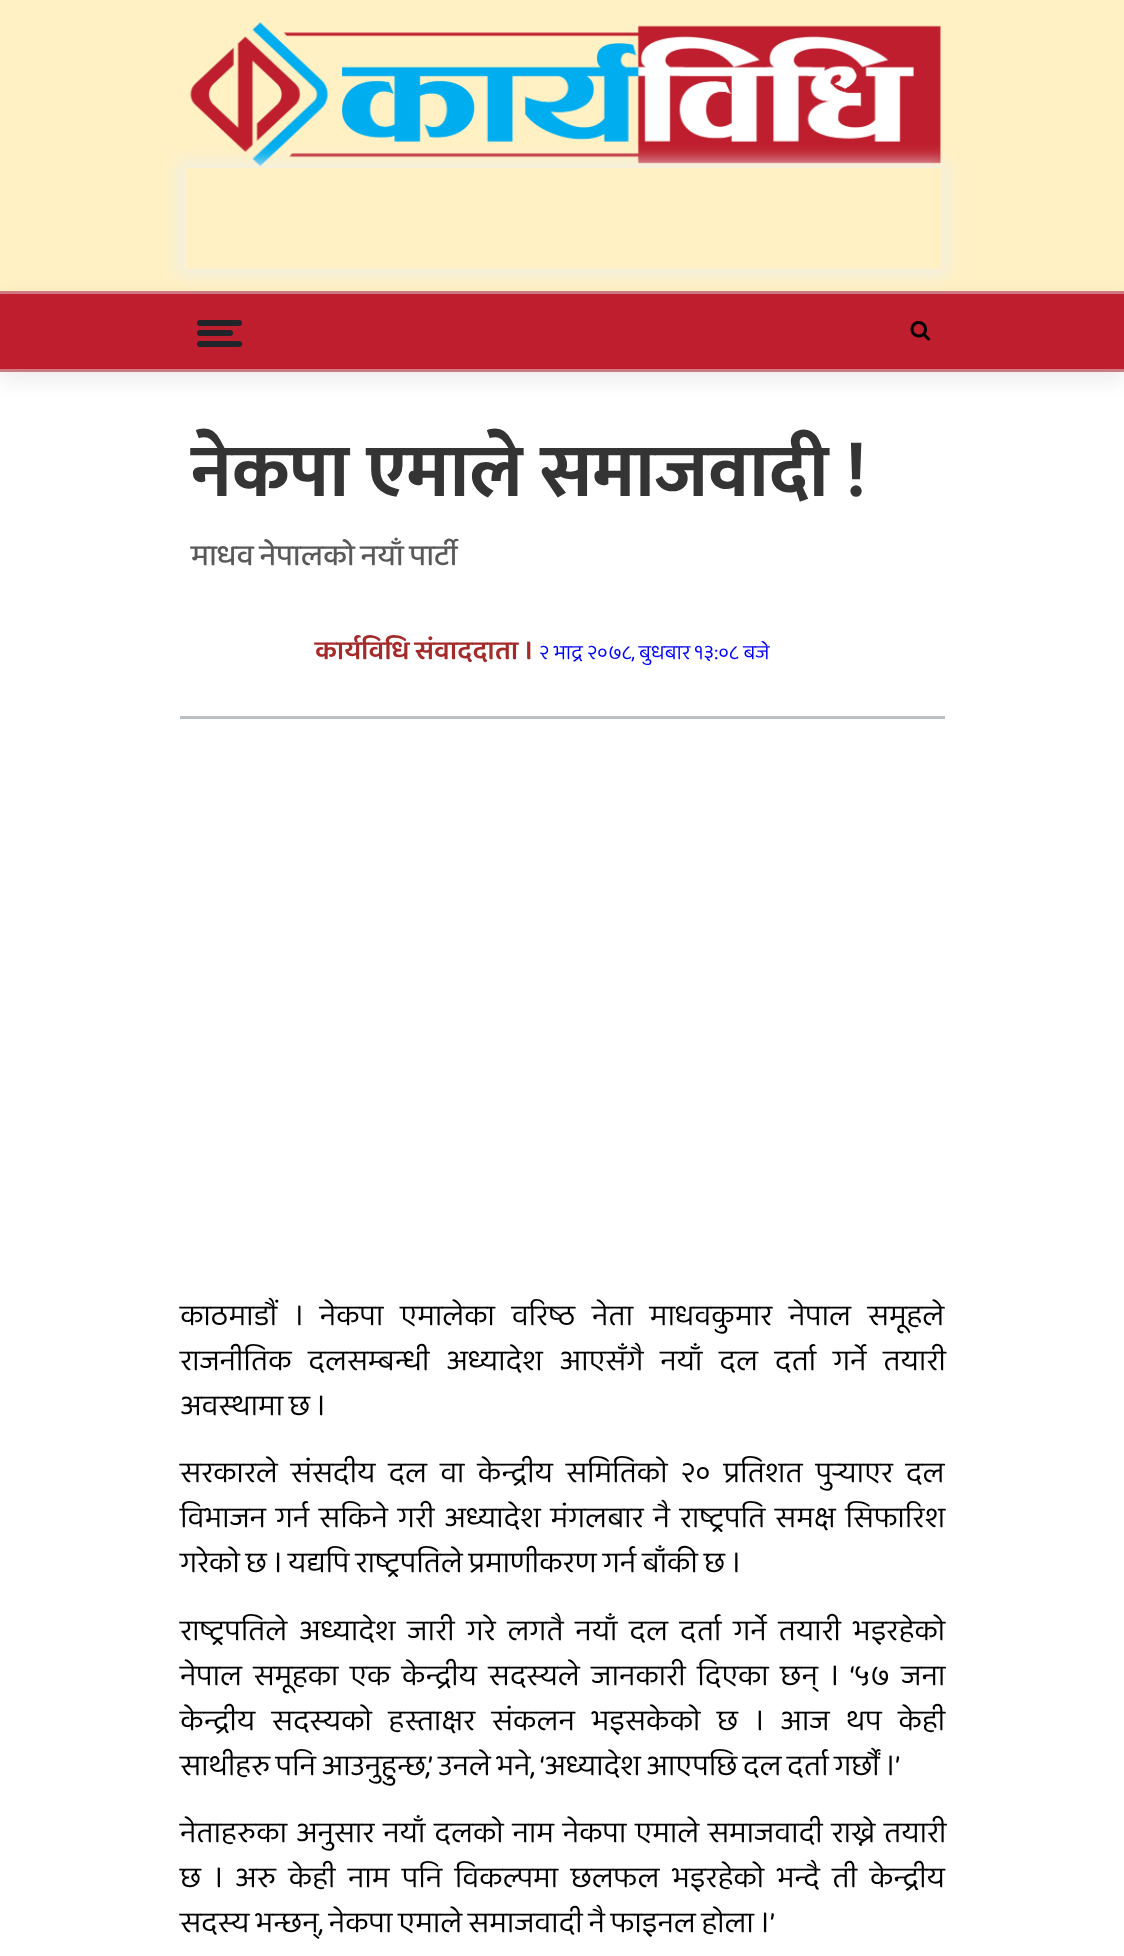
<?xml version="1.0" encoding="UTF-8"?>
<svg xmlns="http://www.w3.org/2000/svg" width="1124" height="1956">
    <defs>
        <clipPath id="clip1"><path d="M 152 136 H 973 V 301 H 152 Z M 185 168 H 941 V 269 H 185 Z" clip-rule="evenodd"/></clipPath>
        <filter id="blur1" x="-50%" y="-200%" width="200%" height="500%"><feGaussianBlur stdDeviation="8"/></filter>
        <filter id="blur2" x="-50%" y="-200%" width="200%" height="500%"><feGaussianBlur stdDeviation="11"/></filter>
    </defs>
    <rect width="100%" height="100%" fill="#FFFFFF"/>
    <rect x="0" y="0" width="1124" height="291" fill="#FFF1C4"/>
    <image x="190" y="22" width="751" height="145" href="img_01.png"/>
    <g clip-path="url(#clip1)">
        <rect x="177" y="161" width="771" height="115" fill="#EEEEEE" fill-opacity="0.7" filter="url(#blur1)"/>
    </g>
    <rect x="0" y="299" width="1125" height="81" fill="#000000" fill-opacity="0.08" filter="url(#blur2)"/>
    <rect x="0" y="294" width="1124" height="75" fill="#BE1E2D"/>
    <rect x="0" y="291" width="1124" height="3" fill="#CD7A81"/>
    <rect x="0" y="369" width="1124" height="3" fill="#CD7A81"/>
    <rect x="197" y="320" width="45" height="6" rx="3" fill="#212529"/>
    <rect x="197" y="341" width="45" height="6" rx="3" fill="#212529"/>
    <rect x="197" y="330" width="36" height="6" rx="3" fill="#212529"/>
    <image x="910" y="321" width="20" height="20" href="img_02.png"/>
    <text x="191" y="496" font-family="Mukta" font-size="75" font-weight="700" fill="#343434">नेकपा एमाले समाजवादी !</text>
    <text x="191" y="565" font-family="'Baloo 2'" font-size="30" font-weight="500" fill="#595959">माधव नेपालको नयाँ पार्टी</text>
    <rect x="180" y="716" width="765" height="3" fill="#BABFC6"/>
    <text x="315" y="659" font-family="'Baloo 2'" font-size="27" font-weight="600" fill="#A52A2A">कार्यविधि संवाददाता ।</text>
    <text x="539" y="659" font-family="'Baloo 2'" font-size="21" fill="#0000FF">२ भाद्र २०७८, बुधबार १३:०८ बजे</text>
    <text font-family="'Baloo 2'" font-size="30" fill="#000000">
        <tspan x="180" y="1325" word-spacing="11">काठमाडौं । नेकपा एमालेका वरिष्ठ नेता माधवकुमार नेपाल समूहले</tspan>
        <tspan x="180" y="1370" word-spacing="11">राजनीतिक दलसम्बन्धी अध्यादेश आएसँगै नयाँ दल दर्ता गर्ने तयारी</tspan>
        <tspan x="180" y="1415">अवस्थामा छ ।</tspan>
    </text>
    <text font-family="'Baloo 2'" font-size="30" fill="#000000">
        <tspan x="180" y="1482" word-spacing="7.25">सरकारले संसदीय दल वा केन्द्रीय समितिको २० प्रतिशत पुर्‍याएर दल</tspan>
        <tspan x="180" y="1527" word-spacing="4">विभाजन गर्न सकिने गरी अध्यादेश मंगलबार नै राष्ट्रपति समक्ष सिफारिश</tspan>
        <tspan x="180" y="1572" word-spacing="0.25">गरेको छ । यद्यपि राष्ट्रपतिले प्रमाणीकरण गर्न बाँकी छ ।</tspan>
    </text>
    <text font-family="'Baloo 2'" font-size="30" fill="#000000">
        <tspan x="180" y="1640" word-spacing="6">राष्ट्रपतिले अध्यादेश जारी गरे लगतै नयाँ दल दर्ता गर्ने तयारी भइरहेको</tspan>
        <tspan x="180" y="1685" word-spacing="5.75">नेपाल समूहका एक केन्द्रीय सदस्यले जानकारी दिएका छन् । ‘५७ जना</tspan>
        <tspan x="180" y="1730" word-spacing="10.75">केन्द्रीय सदस्यको हस्ताक्षर संकलन भइसकेको छ । आज थप केही</tspan>
        <tspan x="180" y="1775" word-spacing="-0.25">साथीहरु पनि आउनुहुन्छ,’ उनले भने, ‘अध्यादेश आएपछि दल दर्ता गर्छौं ।’</tspan>
    </text>
    <text font-family="'Baloo 2'" font-size="30" fill="#000000">
        <tspan x="180" y="1842" word-spacing="3">नेताहरुका अनुसार नयाँ दलको नाम नेकपा एमाले समाजवादी राख्ने तयारी</tspan>
        <tspan x="180" y="1887" word-spacing="6.75">छ । अरु केही नाम पनि विकल्पमा छलफल भइरहेको भन्दै ती केन्द्रीय</tspan>
        <tspan x="180" y="1932">सदस्य भन्छन्, नेकपा एमाले समाजवादी नै फाइनल होला ।’</tspan>
    </text>
</svg>
